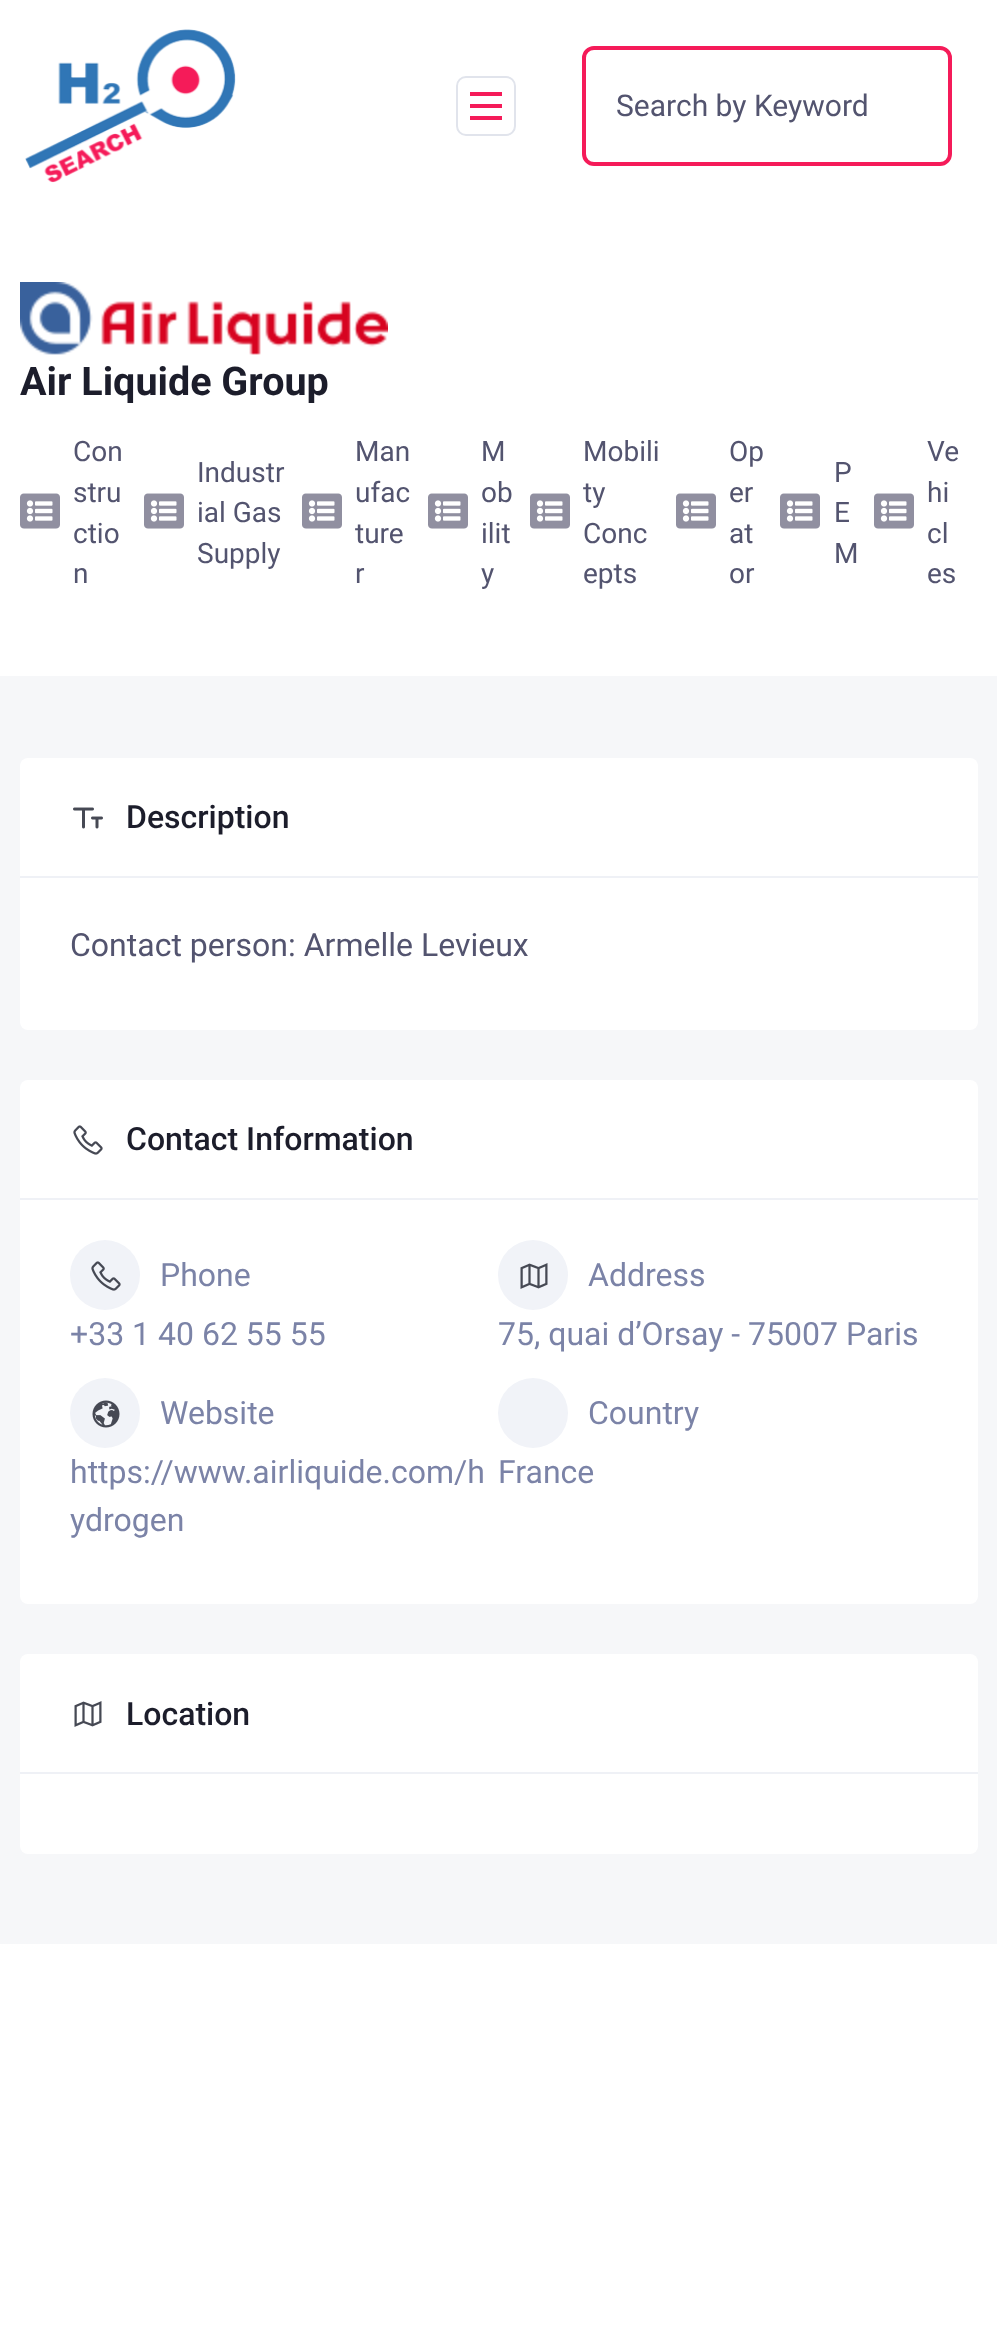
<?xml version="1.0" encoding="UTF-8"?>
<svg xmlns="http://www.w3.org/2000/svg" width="997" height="2337">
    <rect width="100%" height="100%" fill="#FFFFFF"/>
    <image x="25" y="29" width="211" height="154" href="img_01.png"/>
    <rect x="457" y="77" width="58" height="58" rx="9" fill="none" stroke="#E1E4EC" stroke-width="2"/>
    <rect x="470" y="92" width="32" height="4" fill="#F51B59"/>
    <rect x="470" y="104" width="32" height="4" fill="#F51B59"/>
    <rect x="470" y="116" width="32" height="4" fill="#F51B59"/>
    <rect x="584" y="48" width="366" height="116" rx="10" fill="none" stroke="#F51B59" stroke-width="4"/>
    <text x="616" y="116" font-family="Roboto" font-size="30" fill="#53546F">Search by Keyword</text>
    <image x="20" y="282" width="368" height="73" href="img_02.png"/>
    <text x="20" y="395" font-family="Roboto" font-size="39.5" font-weight="700" fill="#1C1D2B">Air Liquide Group</text>
    <image x="20" y="493" width="40" height="36" href="img_03.png"/>
    <text font-family="Roboto" font-size="28" fill="#53546F">
        <tspan x="73" y="461">Con</tspan>
        <tspan x="73" y="502">stru</tspan>
        <tspan x="73" y="543">ctio</tspan>
        <tspan x="73" y="583">n</tspan>
    </text>
    <image x="144" y="493" width="40" height="36" href="img_03.png"/>
    <text font-family="Roboto" font-size="28" fill="#53546F">
        <tspan x="197" y="482">Industr</tspan>
        <tspan x="197" y="522">ial Gas</tspan>
        <tspan x="197" y="563">Supply</tspan>
    </text>
    <image x="302" y="493" width="40" height="36" href="img_03.png"/>
    <text font-family="Roboto" font-size="28" fill="#53546F">
        <tspan x="355" y="461">Man</tspan>
        <tspan x="355" y="502">ufac</tspan>
        <tspan x="355" y="543">ture</tspan>
        <tspan x="355" y="583">r</tspan>
    </text>
    <image x="428" y="493" width="40" height="36" href="img_03.png"/>
    <text font-family="Roboto" font-size="28" fill="#53546F">
        <tspan x="481" y="461">M</tspan>
        <tspan x="481" y="502">ob</tspan>
        <tspan x="481" y="543">ilit</tspan>
        <tspan x="481" y="583">y</tspan>
    </text>
    <image x="530" y="493" width="40" height="36" href="img_03.png"/>
    <text font-family="Roboto" font-size="28" fill="#53546F">
        <tspan x="583" y="461">Mobili</tspan>
        <tspan x="583" y="502">ty</tspan>
        <tspan x="583" y="543">Conc</tspan>
        <tspan x="583" y="583">epts</tspan>
    </text>
    <image x="676" y="493" width="40" height="36" href="img_03.png"/>
    <text font-family="Roboto" font-size="28" fill="#53546F">
        <tspan x="729" y="461">Op</tspan>
        <tspan x="729" y="502">er</tspan>
        <tspan x="729" y="543">at</tspan>
        <tspan x="729" y="583">or</tspan>
    </text>
    <image x="780" y="493" width="40" height="36" href="img_03.png"/>
    <text font-family="Roboto" font-size="28" fill="#53546F">
        <tspan x="834" y="482">P</tspan>
        <tspan x="834" y="522">E</tspan>
        <tspan x="834" y="563">M</tspan>
    </text>
    <image x="874" y="493" width="40" height="36" href="img_03.png"/>
    <text font-family="Roboto" font-size="28" fill="#53546F">
        <tspan x="927" y="461">Ve</tspan>
        <tspan x="927" y="502">hi</tspan>
        <tspan x="927" y="543">cl</tspan>
        <tspan x="927" y="583">es</tspan>
    </text>
    <rect x="0" y="676" width="997" height="1268" fill="#F6F7F9"/>
    <rect x="20" y="758" width="958" height="272" rx="8" fill="#FFFFFF"/>
    <rect x="20" y="876" width="958" height="2" fill="#EFF1F6"/>
    <image x="73" y="807" width="30" height="22" href="img_04.png"/>
    <text x="126" y="828" font-family="Roboto" font-size="32" font-weight="500" fill="#1C1D2B">Description</text>
    <text x="70" y="956" font-family="Roboto" font-size="32" fill="#53546F">Contact person: Armelle Levieux</text>
    <rect x="20" y="1080" width="958" height="524" rx="8" fill="#FFFFFF"/>
    <rect x="20" y="1198" width="958" height="2" fill="#EFF1F6"/>
    <image x="73" y="1125" width="30" height="30" href="img_05.png"/>
    <text x="126" y="1150" font-family="Roboto" font-size="32" font-weight="500" fill="#1C1D2B">Contact Information</text>
    <circle cx="105" cy="1275" r="35" fill="#F1F3F8"/>
    <image x="91" y="1261" width="30" height="30" href="img_06.png"/>
    <text x="160" y="1286" font-family="Roboto" font-size="32" fill="#7B83A7">Phone</text>
    <text x="70" y="1345" font-family="Roboto" font-size="32" fill="#7B83A7">+33 1 40 62 55 55</text>
    <circle cx="533" cy="1275" r="35" fill="#F1F3F8"/>
    <image x="520" y="1263" width="28" height="26" href="img_07.png"/>
    <text x="588" y="1286" font-family="Roboto" font-size="32" fill="#7B83A7">Address</text>
    <text x="498" y="1345" font-family="Roboto" font-size="32" fill="#7B83A7">75, quai d’Orsay - 75007 Paris</text>
    <circle cx="105" cy="1413" r="35" fill="#F1F3F8"/>
    <image x="92" y="1400" width="28" height="28" href="img_08.png"/>
    <text x="160" y="1424" font-family="Roboto" font-size="32" fill="#7B83A7">Website</text>
    <text font-family="Roboto" font-size="32" fill="#7B83A7">
        <tspan x="70" y="1483">https://www.airliquide.com/h</tspan>
        <tspan x="70" y="1531">ydrogen</tspan>
    </text>
    <circle cx="533" cy="1413" r="35" fill="#F1F3F8"/>
    <text x="588" y="1424" font-family="Roboto" font-size="32" fill="#7B83A7">Country</text>
    <text x="498" y="1483" font-family="Roboto" font-size="32" fill="#7B83A7">France</text>
    <rect x="20" y="1654" width="958" height="200" rx="8" fill="#FFFFFF"/>
    <rect x="20" y="1772" width="958" height="2" fill="#EFF1F6"/>
    <image x="74" y="1701" width="28" height="26" href="img_09.png"/>
    <text x="126" y="1725" font-family="Roboto" font-size="32" font-weight="500" fill="#1C1D2B">Location</text>
</svg>
